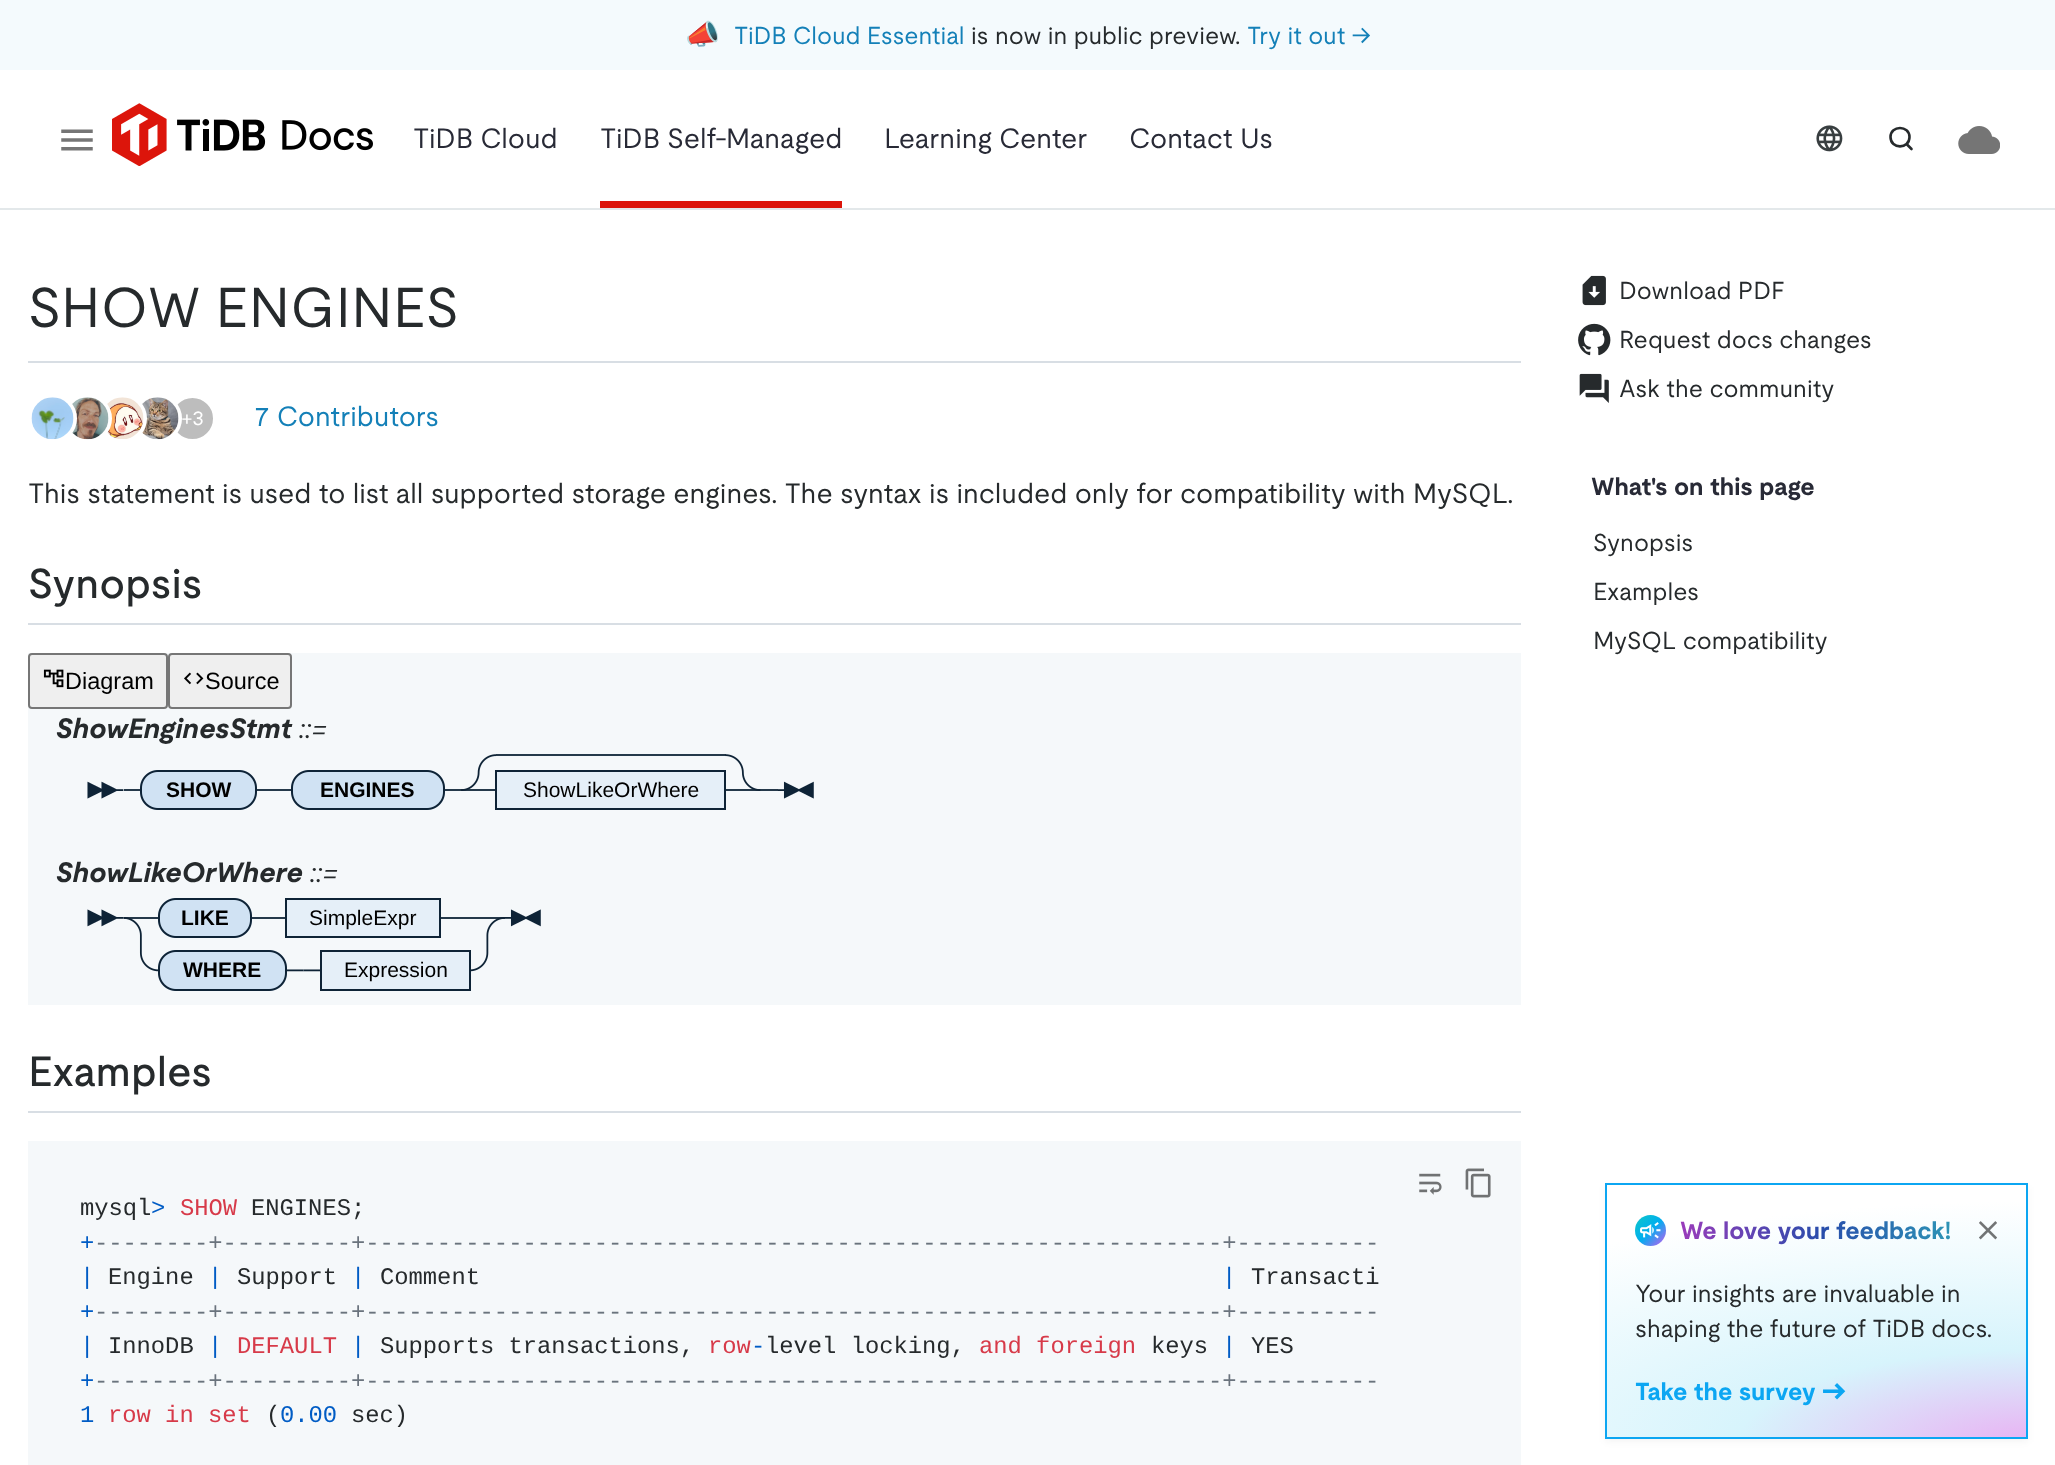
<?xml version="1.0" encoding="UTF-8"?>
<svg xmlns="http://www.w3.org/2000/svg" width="2055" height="1465">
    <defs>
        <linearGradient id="g1" gradientUnits="userSpaceOnUse" x1="1680" y1="1230" x2="1964" y2="1230"><stop offset="0" stop-color="#9A3CBB"/><stop offset="0.5" stop-color="#284DAB"/><stop offset="1" stop-color="#2D9BB7"/></linearGradient>
        <filter id="blur1" x="-50%" y="-200%" width="200%" height="500%"><feGaussianBlur stdDeviation="3.5"/></filter>
        <radialGradient id="g2" gradientUnits="userSpaceOnUse" cx="0" cy="0" r="1" gradientTransform="matrix(761 0 0 244 2034 1445)"><stop offset="0" stop-color="#E9B0F3"/><stop offset="0.39" stop-color="#D7F4FC"/><stop offset="1" stop-color="#FFFFFF"/></radialGradient>
        <linearGradient id="g3" gradientUnits="userSpaceOnUse" x1="1635" y1="1215" x2="1666" y2="1246"><stop offset="0" stop-color="#0FC7C7"/><stop offset="0.5" stop-color="#00AEEF"/><stop offset="1" stop-color="#CA5AF0"/></linearGradient>
    </defs>
    <rect width="100%" height="100%" fill="#FFFFFF"/>
    <rect x="0" y="0" width="2055" height="70" fill="#F4FAFD"/>
    <text x="685" y="44" font-family="Noto Color Emoji" font-size="28" fill="#262A2C">📣</text>
    <text x="734" y="44" font-family="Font" font-size="24.5" fill="#1480B8">TiDB Cloud Essential</text>
    <text x="971" y="44" font-family="Font" font-size="24.5" fill="#262A2C">is now in public preview.</text>
    <text x="1247" y="44" font-family="Font" font-size="24.5" fill="#1480B8">Try it out →</text>
    <rect x="0" y="208" width="2055" height="2" fill="#E3E8EA"/>
    <image x="61" y="129" width="32" height="22" href="img_01.png"/>
    <image x="112" y="103" width="261" height="63" href="img_02.png"/>
    <text x="413" y="148" font-family="Font" font-size="28" fill="#282A36">TiDB Cloud</text>
    <rect x="600" y="201" width="242" height="7" fill="#DC150B"/>
    <text x="600" y="148" font-family="Font" font-size="28" fill="#282A36">TiDB Self-Managed</text>
    <text x="884" y="148" font-family="Font" font-size="28" fill="#282A36">Learning Center</text>
    <text x="1129" y="148" font-family="Font" font-size="28" fill="#282A36">Contact Us</text>
    <image x="1816" y="125" width="27" height="27" href="img_03.png"/>
    <path d="M 1911.5 149 L 1906.5 144 M 1909.5 137 C 1909.5 149.5 1890.5 149.5 1890.5 137 C 1890.5 125 1909.5 125 1909.5 137 Z" fill="none" stroke="#262A2C" stroke-width="2.6" stroke-linecap="round" stroke-linejoin="round"/>
    <image x="1958" y="126" width="42" height="28" href="img_04.png"/>
    <rect x="28" y="361" width="1493" height="2" fill="#D8DEE4"/>
    <text x="28" y="327" font-family="Font" font-size="56" fill="#262A2C">SHOW ENGINES</text>
    <circle cx="192.5" cy="418.5" r="22.5" fill="#BDBDBD" stroke="#FFFFFF" stroke-width="4"/>
    <circle cx="157.5" cy="418.5" r="22.5" fill="none" stroke="#FFFFFF" stroke-width="4"/>
    <circle cx="158" cy="418" r="21" fill="#FFFFFF"/>
    <image x="140" y="397" width="39" height="43" href="img_08.png"/>
    <circle cx="122.5" cy="418.5" r="22.5" fill="none" stroke="#FFFFFF" stroke-width="4"/>
    <circle cx="123" cy="418" r="21" fill="#FFFFFF"/>
    <image x="105" y="397" width="39" height="42" href="img_07.png"/>
    <circle cx="87.5" cy="418.5" r="22.5" fill="none" stroke="#FFFFFF" stroke-width="4"/>
    <circle cx="88" cy="418" r="21" fill="#FFFFFF"/>
    <image x="70" y="397" width="39" height="43" href="img_06.png"/>
    <circle cx="52.5" cy="418.5" r="22.5" fill="none" stroke="#FFFFFF" stroke-width="4"/>
    <circle cx="53" cy="418" r="21" fill="#FFFFFF"/>
    <image x="31" y="397" width="43" height="43" href="img_05.png"/>
    <text x="181" y="425" font-family="Font" font-size="21" fill="#FFFFFF">+</text>
    <text x="192" y="425" font-family="Font" font-size="21" fill="#FFFFFF">3</text>
    <text x="254" y="426" font-family="Font" font-size="28" fill="#1480B8">7 Contributors</text>
    <text x="28" y="503" font-family="Font" font-size="28" fill="#262A2C">This statement is used to list all supported storage engines. The syntax is included only for compatibility with MySQL.</text>
    <rect x="28" y="623" width="1493" height="2" fill="#D8DEE4"/>
    <text x="28" y="598" font-family="Font" font-size="42" font-weight="500" fill="#262A2C">Synopsis</text>
    <rect x="28" y="653" width="1493" height="352" fill="#F5F8FA"/>
    <rect x="29" y="654" width="138" height="54" rx="3" fill="#EFEFEF" stroke="#767676" stroke-width="2"/>
    <image x="43" y="669" width="21" height="19" href="img_09.png"/>
    <text x="65" y="689" font-family="Liberation Sans" font-size="23.5" fill="#000000">Diagram</text>
    <rect x="169" y="654" width="122" height="54" rx="3" fill="#EFEFEF" stroke="#767676" stroke-width="2"/>
    <image x="184" y="672" width="20" height="13" href="img_10.png"/>
    <text x="205" y="689" font-family="Liberation Sans" font-size="23.5" fill="#000000">Source</text>
    <text x="56" y="738" font-family="Font" font-size="28" font-weight="700" font-style="italic" fill="#262A2C">ShowEnginesStmt</text>
    <text x="299" y="738" font-family="Font" font-size="28" font-style="italic" fill="#262A2C">::=</text>
    <image x="87" y="754" width="727" height="56" href="img_11.png"/>
    <text x="166" y="797" font-family="Liberation Sans" font-size="21" font-weight="700" fill="#000000">SHOW</text>
    <text x="320" y="797" font-family="Liberation Sans" font-size="21" font-weight="700" fill="#000000">ENGINES</text>
    <text x="523" y="797" font-family="Liberation Sans" font-size="21" fill="#000000">ShowLikeOrWhere</text>
    <text x="56" y="882" font-family="Font" font-size="28" font-weight="700" font-style="italic" fill="#262A2C">ShowLikeOrWhere</text>
    <text x="310" y="882" font-family="Font" font-size="28" font-style="italic" fill="#262A2C">::=</text>
    <image x="87" y="898" width="454" height="93" href="img_12.png"/>
    <text x="181" y="925" font-family="Liberation Sans" font-size="21" font-weight="700" fill="#000000">LIKE</text>
    <text x="309" y="925" font-family="Liberation Sans" font-size="21" fill="#000000">SimpleExpr</text>
    <text x="183" y="977" font-family="Liberation Sans" font-size="21" font-weight="700" fill="#000000">WHERE</text>
    <text x="344" y="977" font-family="Liberation Sans" font-size="21" fill="#000000">Expression</text>
    <rect x="28" y="1111" width="1493" height="2" fill="#D8DEE4"/>
    <text x="28" y="1086" font-family="Font" font-size="42" font-weight="500" fill="#262A2C">Examples</text>
    <rect x="28" y="1141" width="1493" height="324" fill="#F5F8FA"/>
    <image x="1419" y="1173" width="23" height="22" href="img_13.png"/>
    <image x="1465" y="1168" width="26" height="30" href="img_14.png"/>
    <text x="80" y="1215" font-family="Liberation Mono" font-size="23.8" fill="#262A2C">mysql</text>
    <text x="151" y="1215" font-family="Liberation Mono" font-size="23.8" fill="#005CC5">&gt;</text>
    <text x="180" y="1215" font-family="Liberation Mono" font-size="23.8" fill="#D73A49">SHOW</text>
    <text x="251" y="1215" font-family="Liberation Mono" font-size="23.8" fill="#262A2C">ENGINES;</text>
    <text x="80" y="1250" font-family="Liberation Mono" font-size="23.8" fill="#005CC5">+</text>
    <text x="94" y="1250" font-family="Liberation Mono" font-size="23.8" fill="#6A737D">--------+---------+------------------------------------------------------------+----------</text>
    <text x="80" y="1284" font-family="Liberation Mono" font-size="23.8" fill="#005CC5">|</text>
    <text x="108" y="1284" font-family="Liberation Mono" font-size="23.8" fill="#262A2C">Engine</text>
    <text x="208" y="1284" font-family="Liberation Mono" font-size="23.8" fill="#005CC5">|</text>
    <text x="237" y="1284" font-family="Liberation Mono" font-size="23.8" fill="#262A2C">Support</text>
    <text x="351" y="1284" font-family="Liberation Mono" font-size="23.8" fill="#005CC5">|</text>
    <text x="380" y="1284" font-family="Liberation Mono" font-size="23.8" fill="#262A2C">Comment</text>
    <text x="1222" y="1284" font-family="Liberation Mono" font-size="23.8" fill="#005CC5">|</text>
    <text x="1251" y="1284" font-family="Liberation Mono" font-size="23.8" fill="#262A2C">Transacti</text>
    <text x="80" y="1319" font-family="Liberation Mono" font-size="23.8" fill="#005CC5">+</text>
    <text x="94" y="1319" font-family="Liberation Mono" font-size="23.8" fill="#6A737D">--------+---------+------------------------------------------------------------+----------</text>
    <text x="80" y="1353" font-family="Liberation Mono" font-size="23.8" fill="#005CC5">|</text>
    <text x="108" y="1353" font-family="Liberation Mono" font-size="23.8" fill="#262A2C">InnoDB</text>
    <text x="208" y="1353" font-family="Liberation Mono" font-size="23.8" fill="#005CC5">|</text>
    <text x="237" y="1353" font-family="Liberation Mono" font-size="23.8" fill="#D73A49">DEFAULT</text>
    <text x="351" y="1353" font-family="Liberation Mono" font-size="23.8" fill="#005CC5">|</text>
    <text x="380" y="1353" font-family="Liberation Mono" font-size="23.8" fill="#262A2C">Supports transactions,</text>
    <text x="708" y="1353" font-family="Liberation Mono" font-size="23.8" fill="#D73A49">row</text>
    <text x="751" y="1353" font-family="Liberation Mono" font-size="23.8" fill="#005CC5">-</text>
    <text x="765" y="1353" font-family="Liberation Mono" font-size="23.8" fill="#262A2C">level locking,</text>
    <text x="979" y="1353" font-family="Liberation Mono" font-size="23.8" fill="#D73A49">and foreign</text>
    <text x="1151" y="1353" font-family="Liberation Mono" font-size="23.8" fill="#262A2C">keys</text>
    <text x="1222" y="1353" font-family="Liberation Mono" font-size="23.8" fill="#005CC5">|</text>
    <text x="1251" y="1353" font-family="Liberation Mono" font-size="23.8" fill="#262A2C">YES</text>
    <text x="80" y="1388" font-family="Liberation Mono" font-size="23.8" fill="#005CC5">+</text>
    <text x="94" y="1388" font-family="Liberation Mono" font-size="23.8" fill="#6A737D">--------+---------+------------------------------------------------------------+----------</text>
    <text x="80" y="1422" font-family="Liberation Mono" font-size="23.8" fill="#005CC5">1</text>
    <text x="108" y="1422" font-family="Liberation Mono" font-size="23.8" fill="#D73A49">row in set</text>
    <text x="266" y="1422" font-family="Liberation Mono" font-size="23.8" fill="#262A2C">(</text>
    <text x="280" y="1422" font-family="Liberation Mono" font-size="23.8" fill="#005CC5">0.00</text>
    <text x="351" y="1422" font-family="Liberation Mono" font-size="23.8" fill="#262A2C">sec)</text>
    <image x="1582" y="275" width="24" height="31" href="img_15.png"/>
    <text x="1619" y="299" font-family="Font" font-size="24.5" fill="#262A2C">Download PDF</text>
    <image x="1578" y="323" width="33" height="33" href="img_16.png"/>
    <text x="1619" y="348" font-family="Font" font-size="24.5" fill="#262A2C">Request docs changes</text>
    <image x="1579" y="373" width="30" height="30" href="img_17.png"/>
    <text x="1619" y="397" font-family="Font" font-size="24.5" fill="#262A2C">Ask the community</text>
    <text x="1591" y="495" font-family="Font" font-size="24.5" font-weight="700" fill="#282A36">What's on this page</text>
    <text x="1593" y="551" font-family="Font" font-size="24.5" fill="#262A2C">Synopsis</text>
    <text x="1593" y="600" font-family="Font" font-size="24.5" fill="#262A2C">Examples</text>
    <text x="1593" y="649" font-family="Font" font-size="24.5" fill="#262A2C">MySQL compatibility</text>
    <rect x="1605" y="1187" width="423" height="255" fill="#000000" fill-opacity="0.04" filter="url(#blur1)"/>
    <rect x="1607" y="1185" width="419" height="252" fill="url(#g2)"/>
    <rect x="1606" y="1184" width="421" height="254" fill="none" stroke="#0CA6F2" stroke-width="2"/>
    <circle cx="1650.5" cy="1230.5" r="15.5" fill="url(#g3)"/>
    <image x="1640" y="1222" width="21" height="17" href="img_18.png"/>
    <text x="1680" y="1239" font-family="Font" font-size="24.5" font-weight="700" fill="url(#g1)">We love your feedback!</text>
    <image x="1979" y="1221" width="18" height="19" href="img_19.png"/>
    <text font-family="Font" font-size="24.5" fill="#262A2C">
        <tspan x="1635" y="1302">Your insights are invaluable in</tspan>
        <tspan x="1635" y="1337">shaping the future of TiDB docs.</tspan>
    </text>
    <text x="1635" y="1400" font-family="Font" font-size="24.5" font-weight="700" fill="#0CA6F2">Take the survey</text>
    <image x="1823" y="1383" width="23" height="17" href="img_20.png"/>
</svg>
